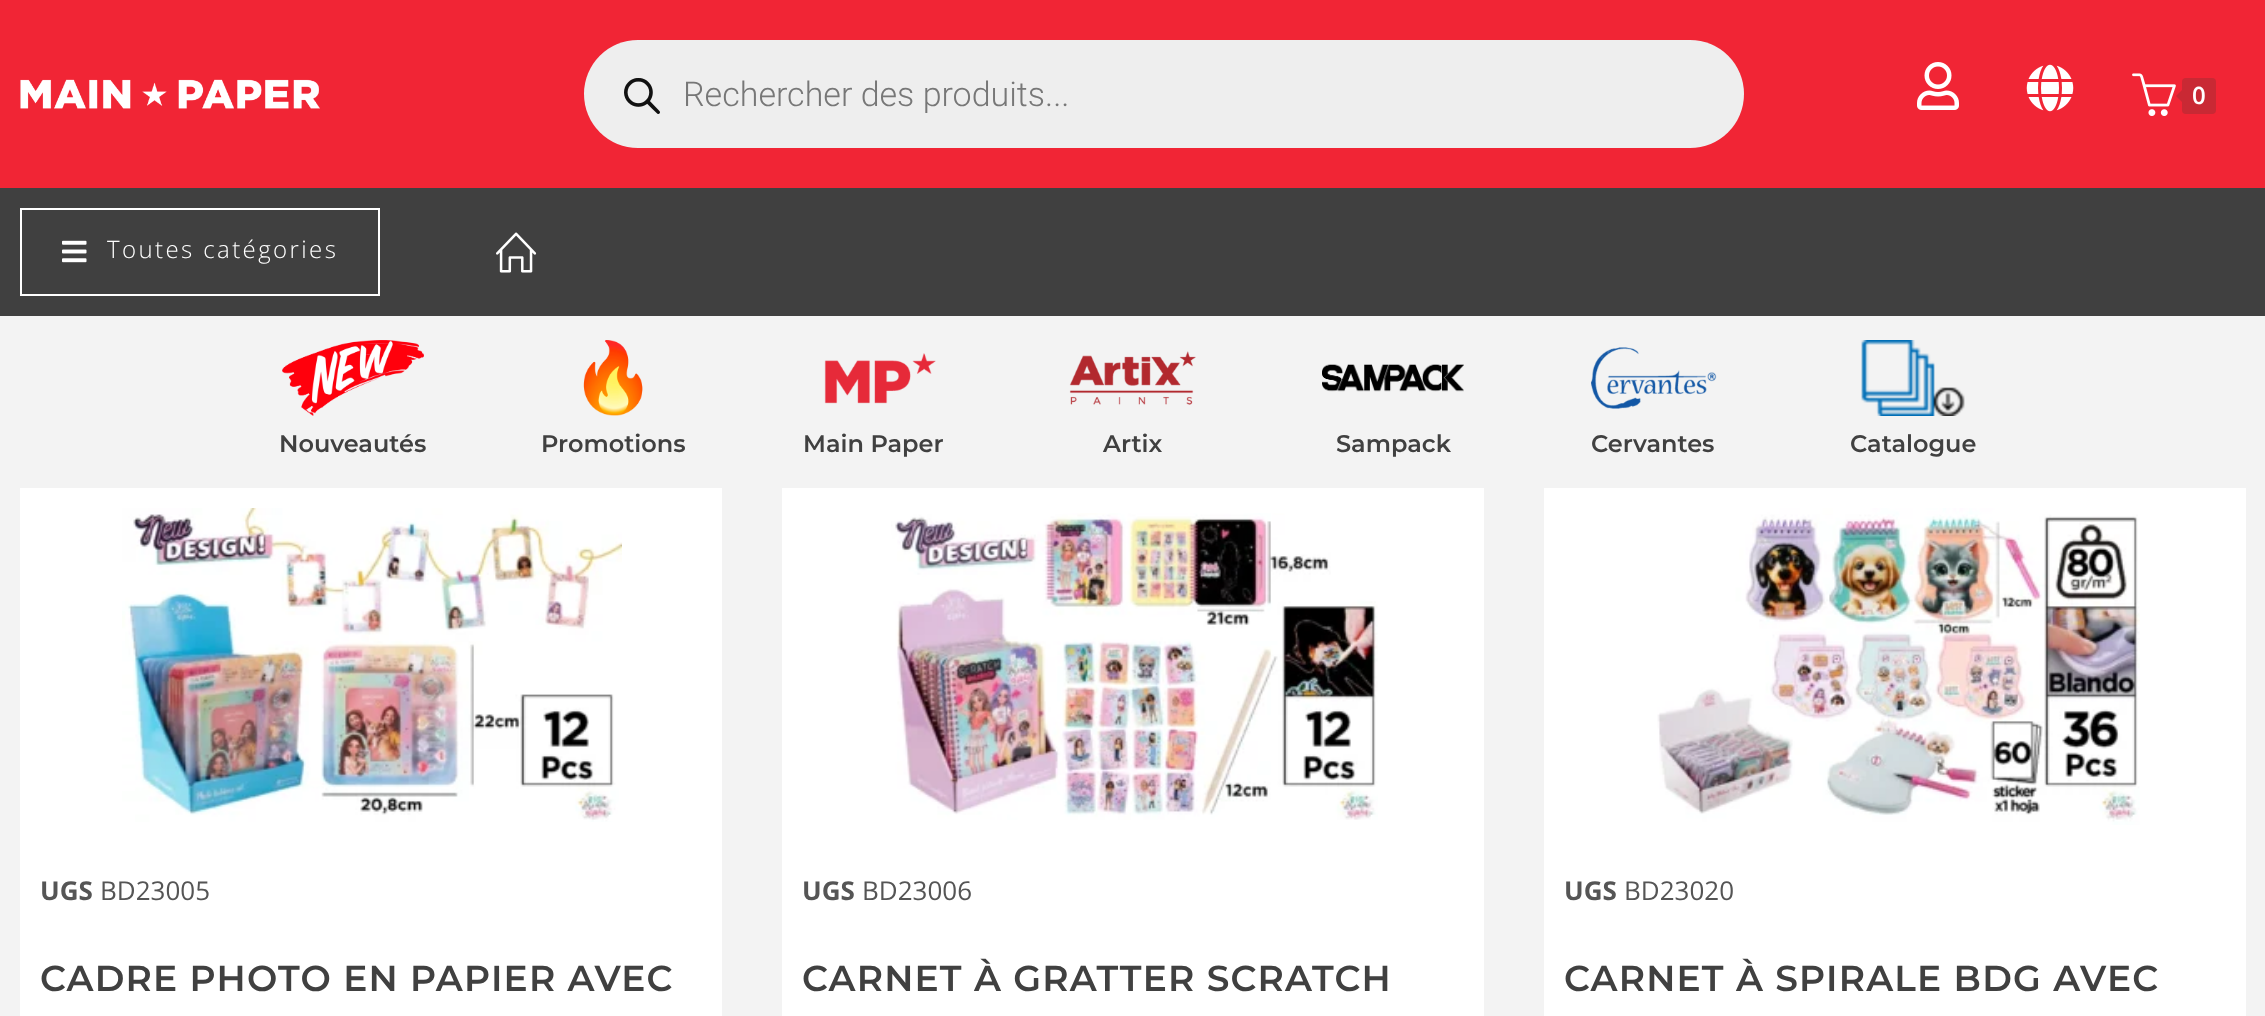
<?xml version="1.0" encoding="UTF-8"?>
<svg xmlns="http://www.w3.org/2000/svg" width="2265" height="1016">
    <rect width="100%" height="100%" fill="#F3F3F3"/>
    <rect x="0" y="0" width="2265" height="188" fill="#F12535"/>
    <image x="20" y="79" width="300" height="30" href="img_01.png"/>
    <rect x="584" y="40" width="1160" height="108" rx="54" fill="#EEEEEE"/>
    <image x="624" y="78" width="36" height="36" href="img_02.png"/>
    <text x="683" y="106" font-family="Roboto" font-size="34" font-weight="300" fill="#777777">Rechercher des produits...</text>
    <image x="1917" y="62" width="42" height="48" href="img_03.png"/>
    <image x="2026" y="64" width="48" height="48" href="img_04.png"/>
    <image x="2132" y="73" width="44" height="43" href="img_05.png"/>
    <rect x="2182" y="78" width="34" height="36" rx="4" fill="#C92934"/>
    <path d="M 2186 86 V 106 L 2176 96 Z" fill="#C92934"/>
    <text x="2192" y="104" font-family="Open Sans" font-size="24" font-weight="600" fill="#FFFFFF">0</text>
    <rect x="0" y="188" width="2265" height="128" fill="#404040"/>
    <rect x="21" y="209" width="358" height="86" fill="none" stroke="#FFFFFF" stroke-width="2"/>
    <image x="62" y="240" width="25" height="23" href="img_06.png"/>
    <text x="107" y="258" font-family="Open Sans" font-size="24" font-weight="300" letter-spacing="2.4" fill="#FFFFFF">Toutes catégories</text>
    <image x="496" y="232" width="41" height="41" href="img_07.png"/>
    <image x="282" y="340" width="142" height="76" href="img_08.png"/>
    <text x="279" y="452" font-family="Montserrat" font-size="24" font-weight="600" fill="#404040">Nouveautés</text>
    <image x="583" y="340" width="60" height="76" href="img_09.png"/>
    <text x="541" y="452" font-family="Montserrat" font-size="24" font-weight="600" fill="#404040">Promotions</text>
    <image x="824" y="353" width="112" height="51" href="img_10.png"/>
    <text x="803" y="452" font-family="Montserrat" font-size="24" font-weight="600" fill="#404040">Main Paper</text>
    <image x="1069" y="351" width="127" height="54" href="img_11.png"/>
    <text x="1103" y="452" font-family="Montserrat" font-size="24" font-weight="600" fill="#404040">Artix</text>
    <image x="1322" y="364" width="142" height="28" href="img_12.png"/>
    <text x="1336" y="452" font-family="Montserrat" font-size="24" font-weight="600" fill="#404040">Sampack</text>
    <image x="1591" y="347" width="126" height="62" href="img_13.png"/>
    <text x="1591" y="452" font-family="Montserrat" font-size="24" font-weight="600" fill="#404040">Cervantes</text>
    <image x="1861" y="340" width="104" height="76" href="img_14.png"/>
    <text x="1850" y="452" font-family="Montserrat" font-size="24" font-weight="600" fill="#404040">Catalogue</text>
    <rect x="20" y="488" width="702" height="528" fill="#FFFFFF"/>
    <image x="122" y="508" width="500" height="314" href="img_15.png"/>
    <text x="40" y="900" font-family="Open Sans" font-size="26" font-weight="700" fill="#555555">UGS</text>
    <text x="100" y="900" font-family="Open Sans" font-size="26" fill="#555555">BD23005</text>
    <text x="40" y="991" font-family="Montserrat" font-size="36" font-weight="600" letter-spacing="1.2" fill="#404040">CADRE PHOTO EN PAPIER AVEC</text>
    <rect x="782" y="488" width="702" height="528" fill="#FFFFFF"/>
    <image x="891" y="513" width="487" height="307" href="img_16.png"/>
    <text x="802" y="900" font-family="Open Sans" font-size="26" font-weight="700" fill="#555555">UGS</text>
    <text x="862" y="900" font-family="Open Sans" font-size="26" fill="#555555">BD23006</text>
    <text x="802" y="991" font-family="Montserrat" font-size="36" font-weight="600" letter-spacing="1.2" fill="#404040">CARNET À GRATTER SCRATCH</text>
    <rect x="1544" y="488" width="702" height="528" fill="#FFFFFF"/>
    <image x="1657" y="508" width="483" height="317" href="img_17.png"/>
    <text x="1564" y="900" font-family="Open Sans" font-size="26" font-weight="700" fill="#555555">UGS</text>
    <text x="1624" y="900" font-family="Open Sans" font-size="26" fill="#555555">BD23020</text>
    <text x="1564" y="991" font-family="Montserrat" font-size="36" font-weight="600" letter-spacing="1.2" fill="#404040">CARNET À SPIRALE BDG AVEC</text>
</svg>
